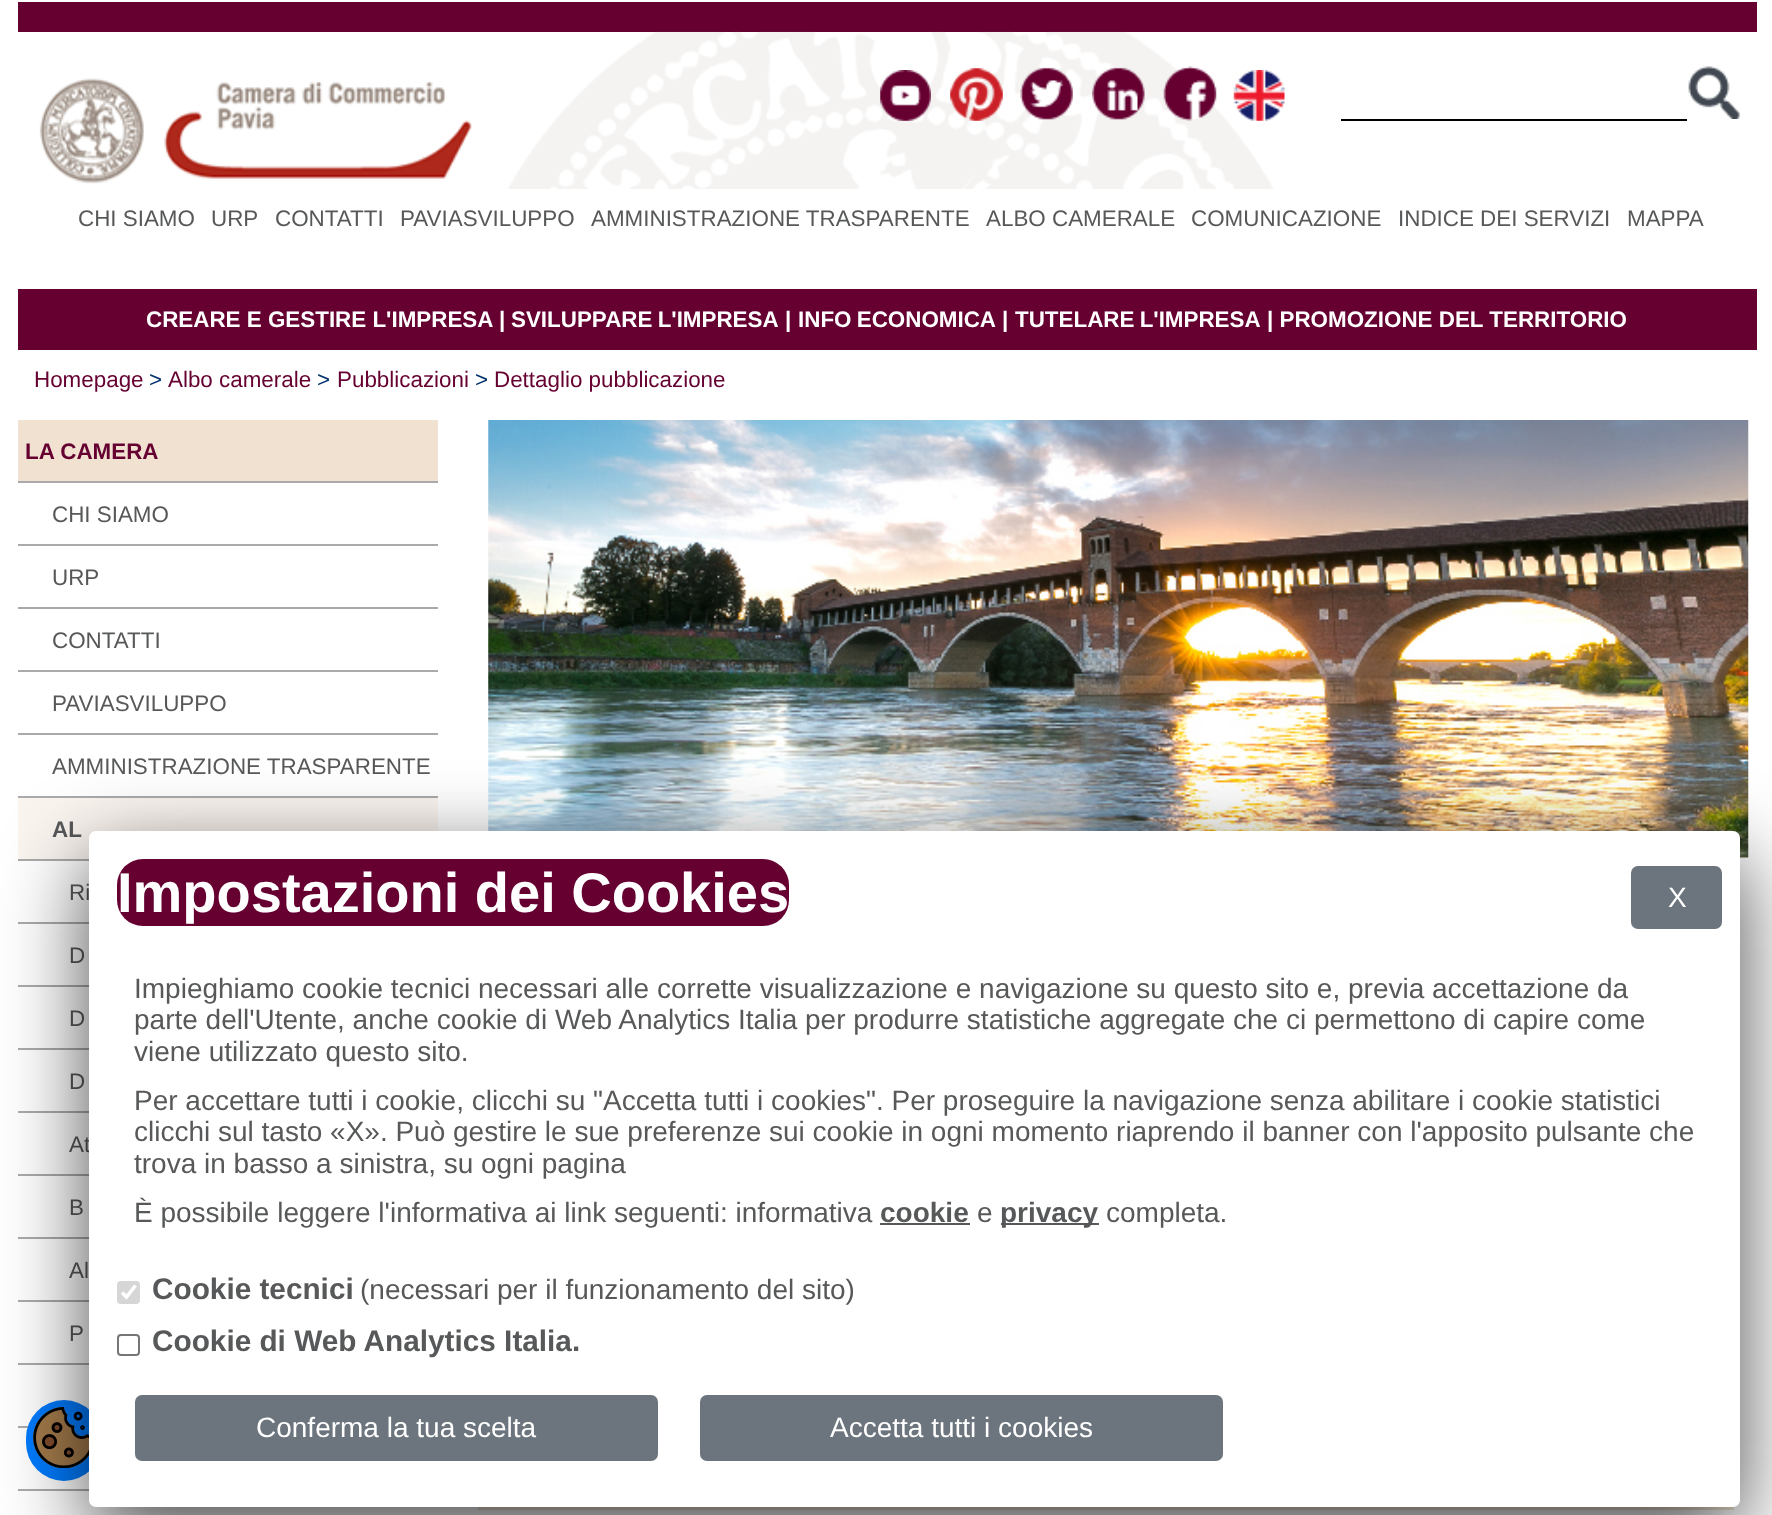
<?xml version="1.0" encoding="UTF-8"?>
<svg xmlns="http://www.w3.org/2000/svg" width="1772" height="1515">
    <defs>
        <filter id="blur1" x="-50%" y="-200%" width="200%" height="500%"><feGaussianBlur stdDeviation="42"/></filter>
    </defs>
    <rect width="100%" height="100%" fill="#FFFFFF"/>
    <rect x="18" y="2" width="1739" height="30" fill="#650031"/>
    <image x="39" y="31" width="1235" height="158" href="img_01.png"/>
    <image x="880" y="70" width="51" height="51" href="img_02.png"/>
    <image x="950" y="68" width="53" height="53" href="img_03.png"/>
    <image x="1020" y="67" width="53" height="53" href="img_04.png"/>
    <image x="1092" y="67" width="53" height="53" href="img_05.png"/>
    <image x="1163" y="66" width="54" height="55" href="img_06.png"/>
    <image x="1233" y="70" width="52" height="51" href="img_07.png"/>
    <image x="1688" y="66" width="52" height="53" href="img_08.png"/>
    <rect x="1341" y="119" width="346" height="2" fill="#000000"/>
    <text x="78" y="226" font-family="Liberation Sans" font-size="22.4" fill="#575859">CHI SIAMO</text>
    <text x="211" y="226" font-family="Liberation Sans" font-size="22.4" fill="#575859">URP</text>
    <text x="275" y="226" font-family="Liberation Sans" font-size="22.4" fill="#575859">CONTATTI</text>
    <text x="400" y="226" font-family="Liberation Sans" font-size="22.4" fill="#575859">PAVIASVILUPPO</text>
    <text x="591" y="226" font-family="Liberation Sans" font-size="22.4" fill="#575859">AMMINISTRAZIONE TRASPARENTE</text>
    <text x="986" y="226" font-family="Liberation Sans" font-size="22.4" fill="#575859">ALBO CAMERALE</text>
    <text x="1191" y="226" font-family="Liberation Sans" font-size="22.4" fill="#575859">COMUNICAZIONE</text>
    <text x="1398" y="226" font-family="Liberation Sans" font-size="22.4" fill="#575859">INDICE DEI SERVIZI</text>
    <text x="1627" y="226" font-family="Liberation Sans" font-size="22.4" fill="#575859">MAPPA</text>
    <rect x="18" y="289" width="1739" height="61" fill="#650031"/>
    <text x="146" y="327" font-family="Liberation Sans" font-size="22.4" font-weight="700" fill="#FFFFFF">CREARE E GESTIRE L'IMPRESA</text>
    <text x="499" y="327" font-family="Liberation Sans" font-size="22.4" font-weight="700" fill="#FFFFFF">|</text>
    <text x="511" y="327" word-spacing="-1" font-family="Liberation Sans" font-size="22.4" font-weight="700" fill="#FFFFFF">SVILUPPARE L'IMPRESA</text>
    <text x="785" y="327" font-family="Liberation Sans" font-size="22.4" font-weight="700" fill="#FFFFFF">|</text>
    <text x="798" y="327" word-spacing="-1" font-family="Liberation Sans" font-size="22.4" font-weight="700" fill="#FFFFFF">INFO ECONOMICA</text>
    <text x="1002" y="327" font-family="Liberation Sans" font-size="22.4" font-weight="700" fill="#FFFFFF">|</text>
    <text x="1015" y="327" word-spacing="-1" font-family="Liberation Sans" font-size="22.4" font-weight="700" fill="#FFFFFF">TUTELARE L'IMPRESA</text>
    <text x="1267" y="327" font-family="Liberation Sans" font-size="22.4" font-weight="700" fill="#FFFFFF">| PROMOZIONE DEL TERRITORIO</text>
    <text x="34" y="387" font-family="Liberation Sans" font-size="22.4" fill="#650031">Homepage</text>
    <text x="149" y="387" font-family="Liberation Sans" font-size="22.4" fill="#02326C">&gt;</text>
    <text x="168" y="387" font-family="Liberation Sans" font-size="22.4" fill="#650031">Albo camerale</text>
    <text x="317" y="387" font-family="Liberation Sans" font-size="22.4" fill="#02326C">&gt;</text>
    <text x="337" y="387" font-family="Liberation Sans" font-size="22.4" fill="#650031">Pubblicazioni</text>
    <text x="475" y="387" font-family="Liberation Sans" font-size="22.4" fill="#02326C">&gt;</text>
    <text x="494" y="387" font-family="Liberation Sans" font-size="22.4" fill="#650031">Dettaglio pubblicazione</text>
    <rect x="18" y="420" width="420" height="61" fill="#F1E1D0"/>
    <rect x="18" y="481" width="420" height="2" fill="#AAAAAA"/>
    <text x="25" y="459" font-family="Liberation Sans" font-size="22.4" font-weight="700" fill="#650031">LA CAMERA</text>
    <rect x="18" y="544" width="420" height="2" fill="#AAAAAA"/>
    <text x="52" y="522" font-family="Liberation Sans" font-size="22.4" fill="#575859">CHI SIAMO</text>
    <rect x="18" y="607" width="420" height="2" fill="#AAAAAA"/>
    <text x="52" y="585" font-family="Liberation Sans" font-size="22.4" fill="#575859">URP</text>
    <rect x="18" y="670" width="420" height="2" fill="#AAAAAA"/>
    <text x="52" y="648" font-family="Liberation Sans" font-size="22.4" fill="#575859">CONTATTI</text>
    <rect x="18" y="733" width="420" height="2" fill="#AAAAAA"/>
    <text x="52" y="711" font-family="Liberation Sans" font-size="22.4" fill="#575859">PAVIASVILUPPO</text>
    <rect x="18" y="796" width="420" height="2" fill="#AAAAAA"/>
    <text x="52" y="774" font-family="Liberation Sans" font-size="22.4" fill="#575859">AMMINISTRAZIONE TRASPARENTE</text>
    <rect x="18" y="798" width="420" height="61" fill="#FBF5F0"/>
    <rect x="18" y="859" width="71" height="2" fill="#AAAAAA"/>
    <text x="52" y="837" font-family="Liberation Sans" font-size="22.4" font-weight="700" fill="#575859">AL</text>
    <rect x="18" y="922" width="71" height="2" fill="#AAAAAA"/>
    <text x="69" y="900" font-family="Liberation Sans" font-size="22.4" fill="#575859">Ri</text>
    <rect x="18" y="985" width="71" height="2" fill="#AAAAAA"/>
    <text x="69" y="963" font-family="Liberation Sans" font-size="22.4" fill="#575859">D</text>
    <rect x="18" y="1048" width="71" height="2" fill="#AAAAAA"/>
    <text x="69" y="1026" font-family="Liberation Sans" font-size="22.4" fill="#575859">D</text>
    <rect x="18" y="1111" width="71" height="2" fill="#AAAAAA"/>
    <text x="69" y="1089" font-family="Liberation Sans" font-size="22.4" fill="#575859">D</text>
    <rect x="18" y="1174" width="71" height="2" fill="#AAAAAA"/>
    <text x="69" y="1152" font-family="Liberation Sans" font-size="22.4" fill="#575859">At</text>
    <rect x="18" y="1237" width="71" height="2" fill="#AAAAAA"/>
    <text x="69" y="1215" font-family="Liberation Sans" font-size="22.4" fill="#575859">B</text>
    <rect x="18" y="1300" width="71" height="2" fill="#AAAAAA"/>
    <text x="69" y="1278" font-family="Liberation Sans" font-size="22.4" fill="#575859">Al</text>
    <rect x="18" y="1363" width="71" height="2" fill="#AAAAAA"/>
    <text x="69" y="1341" font-family="Liberation Sans" font-size="22.4" fill="#575859">P</text>
    <rect x="18" y="1426" width="10" height="2" fill="#AAAAAA"/>
    <rect x="18" y="1489" width="71" height="2" fill="#AAAAAA"/>
    <image x="488" y="420" width="1261" height="438" href="img_09.png"/>
    <rect x="478" y="1506" width="1256" height="4" fill="#F2E5D4"/>
    <rect x="26" y="1400" width="76" height="81" rx="38" fill="#007BFF"/>
    <image x="33" y="1407" width="56" height="61" href="img_10.png"/>
    <rect x="89" y="859" width="1651" height="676" rx="7" fill="#000000" fill-opacity="0.7" filter="url(#blur1)"/>
    <rect x="89" y="831" width="1651" height="676" rx="7" fill="#FFFFFF"/>
    <rect x="117" y="859" width="672" height="67" rx="26" fill="#650031"/>
    <text x="117" y="912" font-family="Liberation Sans" font-size="56" font-weight="700" fill="#FFFFFF">Impostazioni dei Cookies</text>
    <rect x="1631" y="866" width="91" height="63" rx="7" fill="#6C757D"/>
    <text x="1668" y="907" font-family="Liberation Sans" font-size="28" fill="#FFFFFF">X</text>
    <text font-family="Liberation Sans" font-size="28" fill="#575859">
        <tspan x="134" y="998">Impieghiamo cookie tecnici necessari alle corrette visualizzazione e navigazione su questo sito e, previa accettazione da</tspan>
        <tspan x="134" y="1029">parte dell'Utente, anche cookie di Web Analytics Italia per produrre statistiche aggregate che ci permettono di capire come</tspan>
        <tspan x="134" y="1061">viene utilizzato questo sito.</tspan>
        <tspan x="134" y="1110">Per accettare tutti i cookie, clicchi su "Accetta tutti i cookies". Per proseguire la navigazione senza abilitare i cookie statistici</tspan>
        <tspan x="134" y="1141">clicchi sul tasto «X». Può gestire le sue preferenze sui cookie in ogni momento riaprendo il banner con l'apposito pulsante che</tspan>
        <tspan x="134" y="1173">trova in basso a sinistra, su ogni pagina</tspan>
        <tspan x="134" y="1222">È possibile leggere l'informativa ai link seguenti: informativa</tspan>
    </text>
    <text x="880" y="1222" font-family="Liberation Sans" font-size="28" font-weight="700" fill="#575859">cookie</text>
    <rect x="880" y="1223" width="90" height="2" fill="#575859"/>
    <text x="977" y="1222" font-family="Liberation Sans" font-size="28" fill="#575859">e</text>
    <rect x="1001" y="1223" width="98" height="2" fill="#575859"/>
    <text x="1000" y="1222" font-family="Liberation Sans" font-size="28" font-weight="700" fill="#575859">privacy</text>
    <text x="1106" y="1222" font-family="Liberation Sans" font-size="28" fill="#575859">completa.</text>
    <rect x="117" y="1281" width="23" height="23" rx="4" fill="#D6D6D6"/>
    <path d="M 122 1292.5 L 126.5 1297 L 135.5 1285.5" fill="none" stroke="#FFFFFF" stroke-width="3.6"/>
    <text x="152" y="1299" font-family="Liberation Sans" font-size="29.75" font-weight="700" fill="#575859">Cookie tecnici</text>
    <text x="360" y="1299" font-family="Liberation Sans" font-size="28" fill="#575859">(necessari per il funzionamento del sito)</text>
    <rect x="118" y="1335" width="21" height="20" rx="3" fill="none" stroke="#767676" stroke-width="2"/>
    <text x="152" y="1351" font-family="Liberation Sans" font-size="29.75" font-weight="700" fill="#575859">Cookie di Web Analytics Italia.</text>
    <rect x="135" y="1395" width="523" height="66" rx="7" fill="#6C757D"/>
    <text x="256" y="1437" font-family="Liberation Sans" font-size="28" fill="#FFFFFF">Conferma la tua scelta</text>
    <rect x="700" y="1395" width="523" height="66" rx="7" fill="#6C757D"/>
    <text x="830" y="1437" font-family="Liberation Sans" font-size="28" fill="#FFFFFF">Accetta tutti i cookies</text>
</svg>
